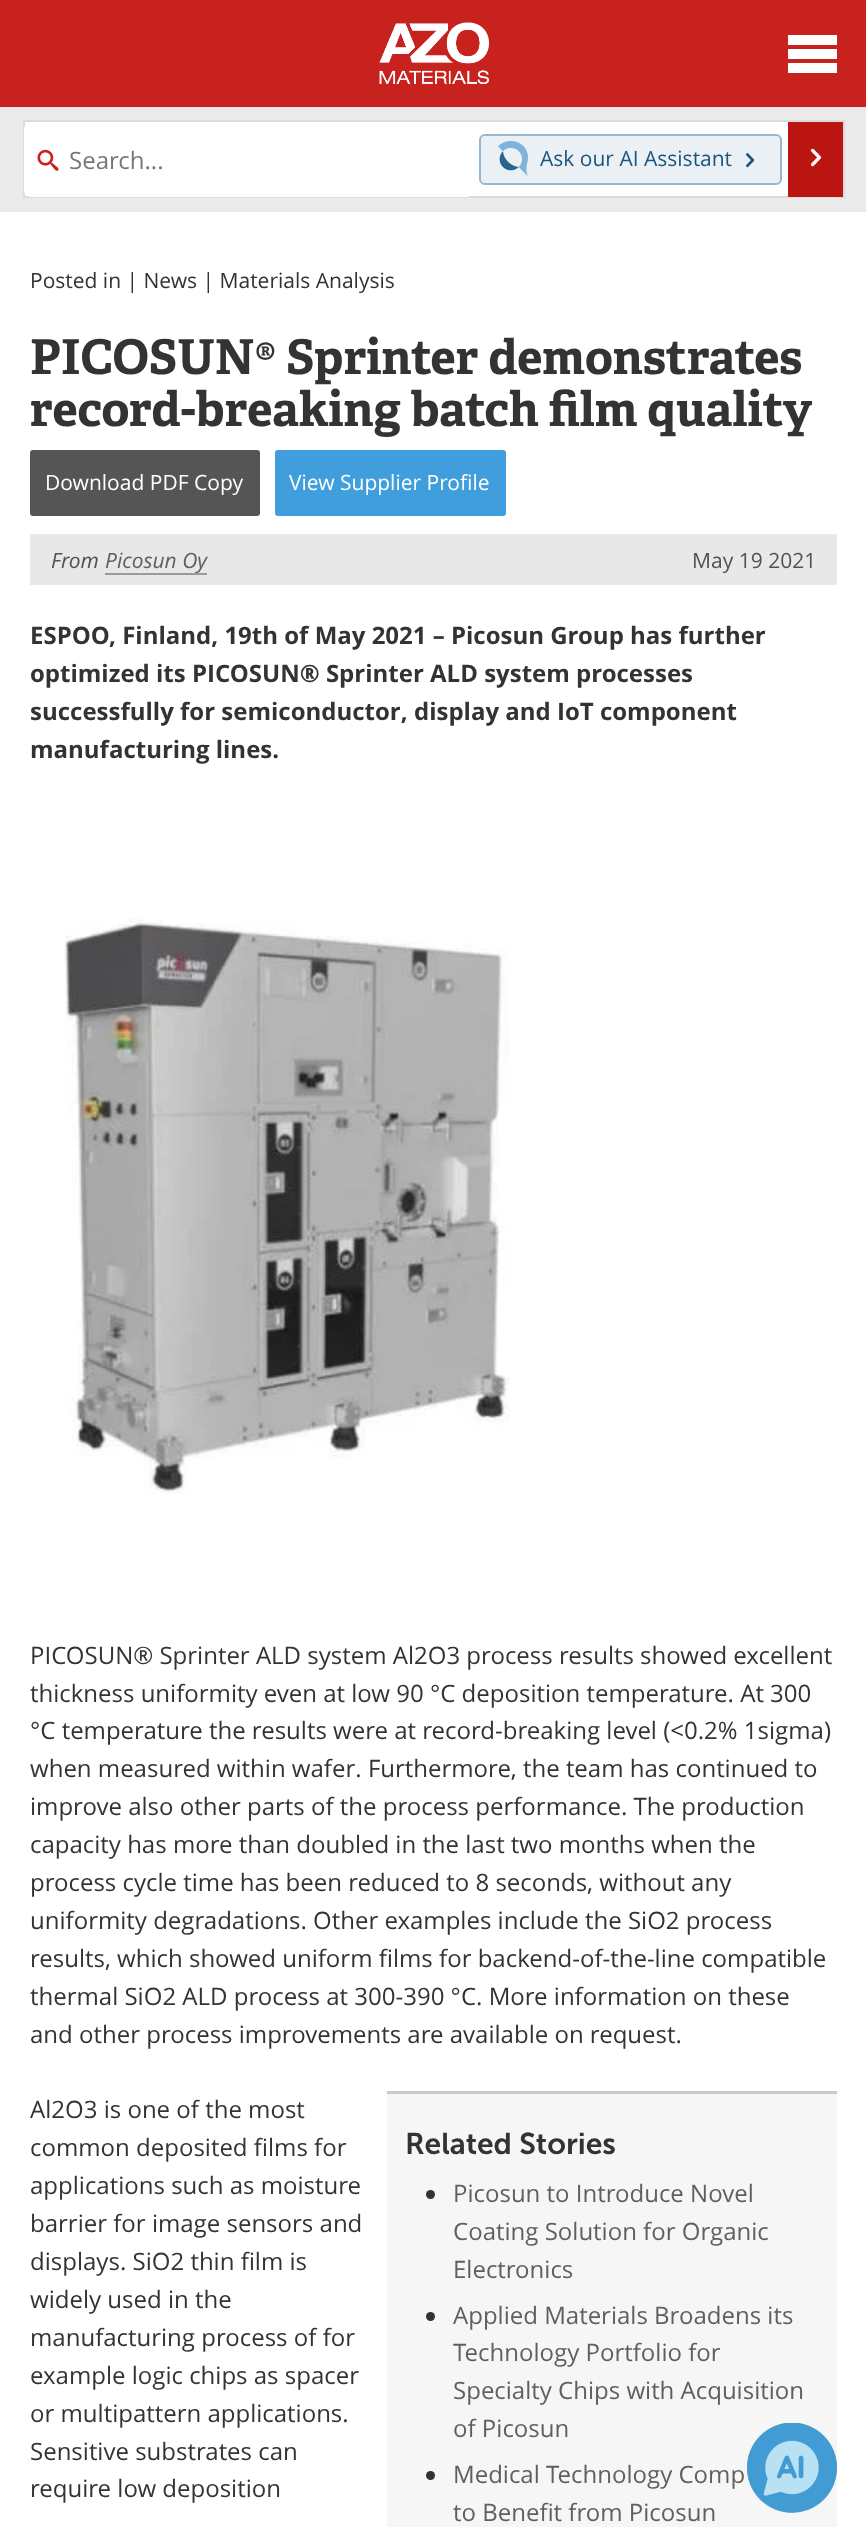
<?xml version="1.0" encoding="UTF-8"?>
<svg xmlns="http://www.w3.org/2000/svg" width="866" height="2527">
    <rect width="100%" height="100%" fill="#FFFFFF"/>
    <rect x="0" y="107" width="866" height="105" fill="#EAEAEA"/>
    <rect x="0" y="0" width="866" height="107" fill="#C8221E"/>
    <image x="379" y="22" width="111" height="62" href="img_01.png"/>
    <path d="M 788 35 H 837 V 45 H 788 Z M 788 49 H 837 V 59 H 788 Z M 788 63 H 837 V 73 H 788 Z" fill="#FFFFFF"/>
    <rect x="25" y="122" width="763" height="74" fill="#FFFFFF"/>
    <rect x="24" y="121" width="820" height="76" fill="none" stroke="#DBDBDB" stroke-width="2"/>
    <rect x="24" y="123" width="449" height="74" rx="6" fill="#FFFFFF"/>
    <image x="37" y="149" width="22" height="22" href="img_02.png"/>
    <text x="69" y="169" font-family="Open Sans" font-size="24" fill="#777777">Search...</text>
    <rect x="480" y="135" width="301" height="49" rx="5" fill="#EBF0F5" stroke="#97B7CE" stroke-width="2"/>
    <image x="498" y="141" width="30" height="35" href="img_03.png"/>
    <text x="540" y="166" font-family="Open Sans" font-size="21" fill="#1A567E">Ask our AI Assistant</text>
    <image x="746" y="153" width="9" height="15" href="img_04.png"/>
    <rect x="788" y="122" width="55" height="75" fill="#BB1511"/>
    <image x="810" y="148" width="12" height="19" href="img_05.png"/>
    <text x="30" y="288" font-family="Open Sans" font-size="21" fill="#333333">Posted in | News | Materials Analysis</text>
    <text font-family="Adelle" font-size="48" font-weight="700" fill="#333333">
        <tspan x="30" y="374">PICOSUN® Sprinter demonstrates</tspan>
        <tspan x="30" y="426">record-breaking batch film quality</tspan>
    </text>
    <rect x="30" y="450" width="230" height="66" rx="3" fill="#555555"/>
    <text x="45" y="490" font-family="Open Sans" font-size="21" fill="#FFFFFF">Download PDF Copy</text>
    <rect x="275" y="450" width="231" height="66" rx="3" fill="#3F9EDB"/>
    <text x="289" y="490" font-family="Open Sans" font-size="21" fill="#FFFFFF">View Supplier Profile</text>
    <rect x="30" y="534" width="807" height="51" fill="#E8E8E8"/>
    <text x="51" y="568" font-family="Open Sans" font-size="21" font-style="italic" fill="#545154">From</text>
    <rect x="105" y="573" width="102" height="2" fill="#9A9A9A"/>
    <text x="105" y="568" font-family="Open Sans" font-size="21" font-style="italic" fill="#5F5F5F">Picosun Oy</text>
    <text x="692" y="568" font-family="Open Sans" font-size="21" fill="#545154">May 19 2021</text>
    <text font-family="Open Sans" font-size="24" font-weight="700" fill="#333333">
        <tspan x="30" y="644">ESPOO, Finland, 19th of May 2021 – Picosun Group has further</tspan>
        <tspan x="30" y="682">optimized its PICOSUN® Sprinter ALD system processes</tspan>
        <tspan x="30" y="720">successfully for semiconductor, display and IoT component</tspan>
        <tspan x="30" y="758">manufacturing lines.</tspan>
    </text>
    <image x="64" y="918" width="446" height="576" href="img_06.png"/>
    <text font-family="Open Sans" font-size="24" fill="#333333">
        <tspan x="30" y="1664">PICOSUN® Sprinter ALD system Al2O3 process results showed excellent</tspan>
        <tspan x="30" y="1702">thickness uniformity even at low 90 °C deposition temperature. At 300</tspan>
        <tspan x="30" y="1739">°C temperature the results were at record-breaking level (&lt;0.2% 1sigma)</tspan>
        <tspan x="30" y="1777">when measured within wafer. Furthermore, the team has continued to</tspan>
        <tspan x="30" y="1815">improve also other parts of the process performance. The production</tspan>
        <tspan x="30" y="1853">capacity has more than doubled in the last two months when the</tspan>
        <tspan x="30" y="1891">process cycle time has been reduced to 8 seconds, without any</tspan>
        <tspan x="30" y="1929">uniformity degradations. Other examples include the SiO2 process</tspan>
        <tspan x="30" y="1967">results, which showed uniform films for backend-of-the-line compatible</tspan>
        <tspan x="30" y="2005">thermal SiO2 ALD process at 300-390 °C. More information on these</tspan>
        <tspan x="30" y="2043">and other process improvements are available on request.</tspan>
    </text>
    <text font-family="Open Sans" font-size="24" fill="#333333">
        <tspan x="30" y="2118">Al2O3 is one of the most</tspan>
        <tspan x="30" y="2156">common deposited films for</tspan>
        <tspan x="30" y="2194">applications such as moisture</tspan>
        <tspan x="30" y="2232">barrier for image sensors and</tspan>
        <tspan x="30" y="2270">displays. SiO2 thin film is</tspan>
        <tspan x="30" y="2308">widely used in the</tspan>
        <tspan x="30" y="2346">manufacturing process of for</tspan>
        <tspan x="30" y="2384">example logic chips as spacer</tspan>
        <tspan x="30" y="2422">or multipattern applications.</tspan>
        <tspan x="30" y="2460">Sensitive substrates can</tspan>
        <tspan x="30" y="2497">require low deposition</tspan>
    </text>
    <rect x="387" y="2094" width="450" height="433" fill="#F6F6F6"/>
    <rect x="387" y="2091" width="450" height="3" fill="#C9CACB"/>
    <text x="405" y="2154" font-family="'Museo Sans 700'" font-size="30" font-weight="600" fill="#333333">Related Stories</text>
    <circle cx="430.5" cy="2194.5" r="4.5" fill="#333333"/>
    <text font-family="Open Sans" font-size="24" fill="#5F5F5F">
        <tspan x="453" y="2202">Picosun to Introduce Novel</tspan>
        <tspan x="453" y="2240">Coating Solution for Organic</tspan>
        <tspan x="453" y="2278">Electronics</tspan>
    </text>
    <circle cx="430.5" cy="2316.5" r="4.5" fill="#333333"/>
    <text font-family="Open Sans" font-size="24" fill="#5F5F5F">
        <tspan x="453" y="2324">Applied Materials Broadens its</tspan>
        <tspan x="453" y="2361">Technology Portfolio for</tspan>
        <tspan x="453" y="2399">Specialty Chips with Acquisition</tspan>
        <tspan x="453" y="2437">of Picosun</tspan>
    </text>
    <circle cx="430.5" cy="2475.5" r="4.5" fill="#333333"/>
    <text font-family="Open Sans" font-size="24" fill="#5F5F5F">
        <tspan x="453" y="2483">Medical Technology Comp</tspan>
        <tspan x="453" y="2521">to Benefit from Picosun</tspan>
    </text>
    <circle cx="792" cy="2468" r="45" fill="#7FB3DB"/>
    <image x="747" y="2423" width="90" height="90" href="img_07.png"/>
</svg>
